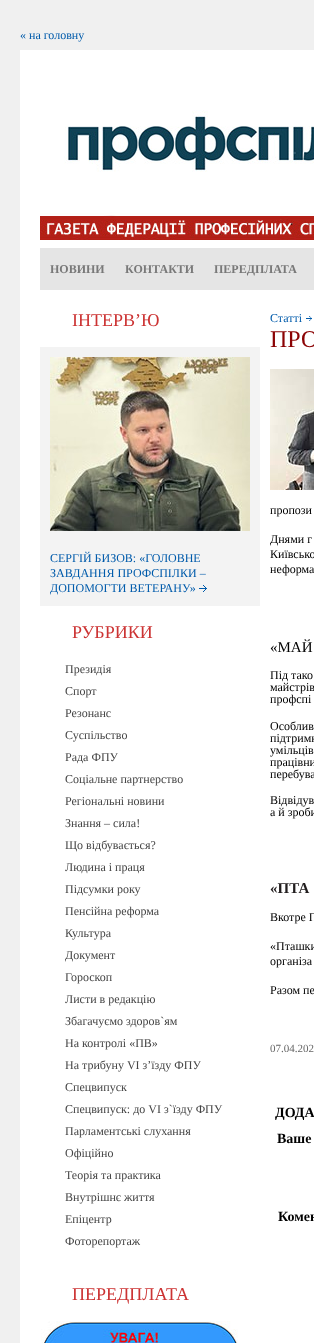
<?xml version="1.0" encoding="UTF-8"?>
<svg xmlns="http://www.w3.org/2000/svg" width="314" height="1343">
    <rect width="100%" height="100%" fill="#F0F0F0"/>
    <text x="20" y="39" font-family="Liberation Serif" font-size="12" fill="#005BAB">« на головну</text>
    <rect x="20" y="50" width="294" height="1293" fill="#FFFFFF"/>
    <image x="65" y="110" width="249" height="22" href="img_01.png"/>
    <image x="40" y="132" width="274" height="108" href="img_02.png"/>
    <rect x="40" y="248" width="274" height="42" fill="#E5E5E5"/>
    <text x="50" y="273" font-family="Liberation Serif" font-size="12" font-weight="700" fill="#797979">НОВИНИ</text>
    <text x="125" y="273" font-family="Liberation Serif" font-size="12" font-weight="700" fill="#797979">КОНТАКТИ</text>
    <text x="214" y="273" font-family="Liberation Serif" font-size="12" font-weight="700" fill="#797979">ПЕРЕДПЛАТА</text>
    <text x="72" y="326" font-family="Liberation Serif" font-size="18" fill="#CC3333">ІНТЕРВ’Ю</text>
    <rect x="40" y="347" width="220" height="259" fill="#F3F3F3"/>
    <image x="50" y="357" width="200" height="174" href="img_03.png"/>
    <text font-family="Liberation Serif" font-size="12" fill="#005BAB">
        <tspan x="50" y="562">СЕРГІЙ БИЗОВ: «ГОЛОВНЕ</tspan>
        <tspan x="50" y="577">ЗАВДАННЯ ПРОФСПІЛКИ –</tspan>
        <tspan x="50" y="592">ДОПОМОГТИ ВЕТЕРАНУ»</tspan>
    </text>
    <image x="199" y="585" width="8" height="7" href="img_04.png"/>
    <text x="72" y="638" font-family="Liberation Serif" font-size="18" fill="#CC3333">РУБРИКИ</text>
    <text font-family="Liberation Serif" font-size="12" fill="#454545">
        <tspan x="65" y="673">Президія</tspan>
        <tspan x="65" y="695">Спорт</tspan>
        <tspan x="65" y="717">Резонанс</tspan>
        <tspan x="65" y="739">Суспільство</tspan>
        <tspan x="65" y="761">Рада ФПУ</tspan>
        <tspan x="65" y="783">Соціальне партнерство</tspan>
        <tspan x="65" y="805">Регіональні новини</tspan>
        <tspan x="65" y="827">Знання – сила!</tspan>
        <tspan x="65" y="849">Що відбувається?</tspan>
        <tspan x="65" y="871">Людина і праця</tspan>
        <tspan x="65" y="893">Підсумки року</tspan>
        <tspan x="65" y="915">Пенсійна реформа</tspan>
        <tspan x="65" y="937">Культура</tspan>
        <tspan x="65" y="959">Документ</tspan>
        <tspan x="65" y="981">Гороскоп</tspan>
        <tspan x="65" y="1003">Листи в редакцію</tspan>
        <tspan x="65" y="1025">Збагачуємо здоров`ям</tspan>
        <tspan x="65" y="1047">На контролі «ПВ»</tspan>
        <tspan x="65" y="1069">На трибуну VI з’їзду ФПУ</tspan>
        <tspan x="65" y="1091">Спецвипуск</tspan>
        <tspan x="65" y="1113">Спецвипуск: до VI з`їзду ФПУ</tspan>
        <tspan x="65" y="1135">Парламентські слухання</tspan>
        <tspan x="65" y="1157">Офіційно</tspan>
        <tspan x="65" y="1179">Теорія та практика</tspan>
        <tspan x="65" y="1201">Внутрішнє життя</tspan>
        <tspan x="65" y="1223">Епіцентр</tspan>
        <tspan x="65" y="1245">Фоторепортаж</tspan>
    </text>
    <text x="72" y="1300" font-family="Liberation Serif" font-size="18" fill="#CC3333">ПЕРЕДПЛАТА</text>
    <image x="41" y="1321" width="197" height="22" href="img_05.png"/>
    <text x="270" y="322" font-family="Liberation Serif" font-size="12" fill="#005BAB">Статті</text>
    <image x="306" y="316" width="6" height="5" href="img_06.png"/>
    <text x="270" y="347" font-family="Liberation Serif" font-size="24" fill="#8B0304">ПРО</text>
    <image x="270" y="369" width="44" height="121" href="img_07.png"/>
    <text x="270" y="514" font-family="Liberation Serif" font-size="12" fill="#000000">пропози</text>
    <text font-family="Liberation Serif" font-size="12" fill="#000000">
        <tspan x="270" y="543">Днями г</tspan>
        <tspan x="270" y="558">Київсько</tspan>
        <tspan x="270" y="573">неформа</tspan>
    </text>
    <text x="270" y="652" font-family="Liberation Serif" font-size="15" fill="#000000">«МАЙ</text>
    <text font-family="Liberation Serif" font-size="12" fill="#000000">
        <tspan x="270" y="679">Під тако</tspan>
        <tspan x="270" y="691">майстрів</tspan>
        <tspan x="270" y="703">профспі</tspan>
    </text>
    <text font-family="Liberation Serif" font-size="12" fill="#000000">
        <tspan x="270" y="730">Особлив</tspan>
        <tspan x="270" y="742">підтримк</tspan>
        <tspan x="270" y="754">умільців</tspan>
        <tspan x="270" y="766">працівни</tspan>
        <tspan x="270" y="778">перебува</tspan>
    </text>
    <text font-family="Liberation Serif" font-size="12" fill="#000000">
        <tspan x="270" y="804">Відвідув</tspan>
        <tspan x="270" y="816">а й зроби</tspan>
    </text>
    <text x="270" y="893" font-family="Liberation Serif" font-size="15" font-weight="700" fill="#211D1E">«ПТА</text>
    <text x="270" y="921" font-family="Liberation Serif" font-size="12" fill="#000000">Вкотре П</text>
    <text font-family="Liberation Serif" font-size="12" fill="#000000">
        <tspan x="270" y="950" word-spacing="1">«Пташки</tspan>
        <tspan x="270" y="965">організа</tspan>
    </text>
    <text x="270" y="994" font-family="Liberation Serif" font-size="12" fill="#000000">Разом пе</text>
    <text x="270" y="1052" font-family="Liberation Serif" font-size="11" fill="#666666">07.04.202</text>
    <text x="275" y="1117" font-family="Liberation Serif" font-size="14" font-weight="700" fill="#000000">ДОДА</text>
    <text x="277" y="1143" font-family="Liberation Serif" font-size="14" font-weight="700" fill="#000000">Ваше</text>
    <text x="278" y="1221" font-family="Liberation Serif" font-size="14" font-weight="700" fill="#000000">Комен</text>
</svg>
